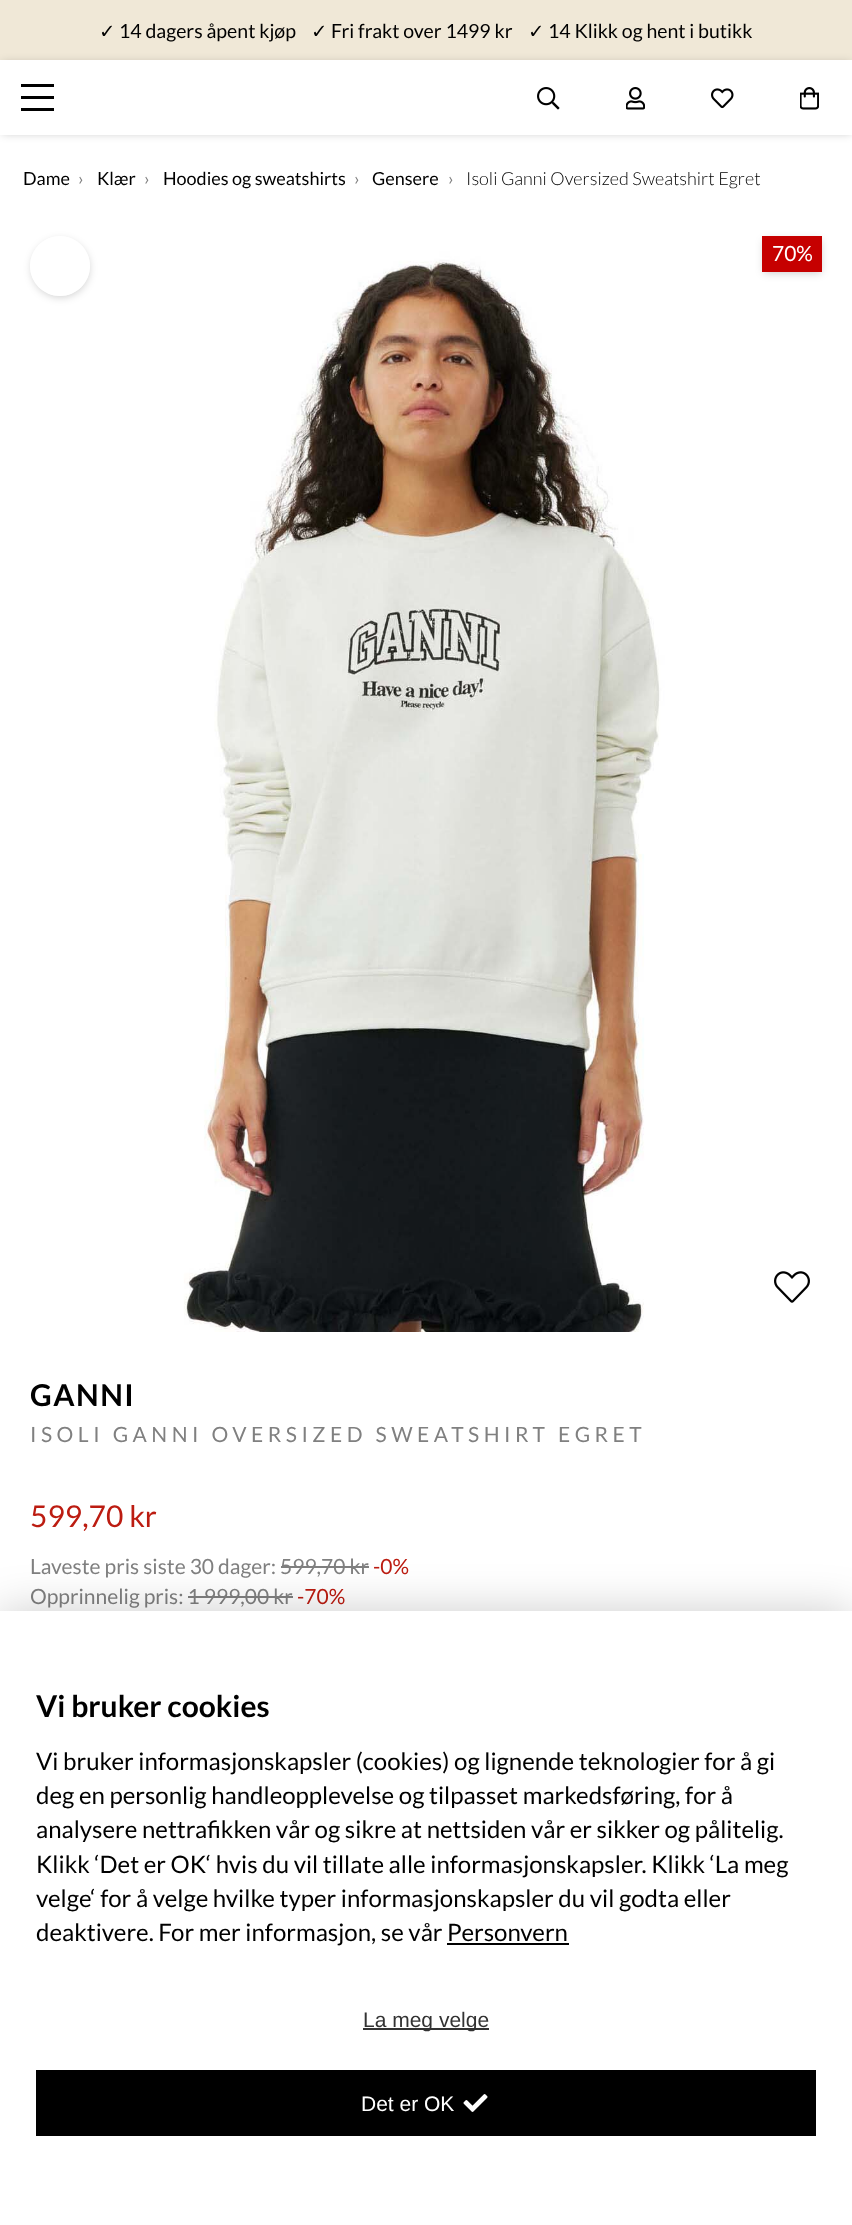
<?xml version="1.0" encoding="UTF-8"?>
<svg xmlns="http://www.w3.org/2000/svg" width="852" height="2225">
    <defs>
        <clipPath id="clip1"><path d="M 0 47 H 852 V 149 H 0 Z M 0 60 H 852 V 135 H 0 Z" clip-rule="evenodd"/></clipPath>
        <filter id="blur1" x="-50%" y="-200%" width="200%" height="500%"><feGaussianBlur stdDeviation="4.5"/></filter>
        <clipPath id="clip2"><path d="M 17 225 H 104 V 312 H 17 Z M 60 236 C 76.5 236 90 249.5 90 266 C 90 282.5 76.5 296 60 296 C 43.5 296 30 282.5 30 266 C 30 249.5 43.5 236 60 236 Z" clip-rule="evenodd"/></clipPath>
        <filter id="blur2" x="-50%" y="-200%" width="200%" height="500%"><feGaussianBlur stdDeviation="22.5"/></filter>
    </defs>
    <rect width="100%" height="100%" fill="#FFFFFF"/>
    <rect x="0" y="0" width="852" height="60" fill="#F0E8D7"/>
    <text x="99" y="38" font-family="DejaVu Sans" font-size="19.5" fill="#000000">✓</text>
    <text x="119" y="38" font-family="Lato" font-size="19.5" fill="#000000">14 dagers åpent kjøp</text>
    <text x="311" y="38" font-family="DejaVu Sans" font-size="19.5" fill="#000000">✓</text>
    <text x="331" y="38" font-family="Lato" font-size="19.5" fill="#000000">Fri frakt over 1499 kr</text>
    <text x="528" y="38" font-family="DejaVu Sans" font-size="19.5" fill="#000000">✓</text>
    <text x="548" y="38" font-family="Lato" font-size="19.5" fill="#000000">14 Klikk og hent i butikk</text>
    <g clip-path="url(#clip1)">
        <rect x="2" y="62" width="849" height="72" fill="#000000" fill-opacity="0.2" filter="url(#blur1)"/>
    </g>
    <rect x="21" y="96" width="33" height="3" fill="#000000"/>
    <rect x="21" y="84" width="33" height="3" fill="#000000"/>
    <rect x="21" y="108" width="33" height="3" fill="#000000"/>
    <image x="537" y="87" width="23" height="23" href="img_01.png"/>
    <image x="626" y="87" width="19" height="23" href="img_02.png"/>
    <image x="711" y="88" width="23" height="21" href="img_03.png"/>
    <image x="800" y="87" width="19" height="23" href="img_04.png"/>
    <text x="23" y="185" font-family="Lato" font-size="18" fill="#000000">Dame</text>
    <text x="78" y="185" font-family="Lato" font-size="18" fill="#808080">›</text>
    <text x="97" y="185" font-family="Lato" font-size="18" fill="#000000">Klær</text>
    <text x="144" y="185" font-family="Lato" font-size="18" fill="#808080">›</text>
    <text x="163" y="185" font-family="Lato" font-size="18" fill="#000000">Hoodies og sweatshirts</text>
    <text x="354" y="185" font-family="Lato" font-size="18" fill="#808080">›</text>
    <text x="372" y="185" font-family="Lato" font-size="18" fill="#000000">Gensere</text>
    <text x="448" y="185" font-family="Lato" font-size="18" fill="#808080">›</text>
    <text x="466" y="185" font-family="Lato" font-size="18" font-weight="300" fill="#000000">Isoli Ganni Oversized Sweatshirt Egret</text>
    <image x="0" y="221" width="852" height="1111" href="img_05.png"/>
    <g clip-path="url(#clip2)">
        <rect x="32" y="240" width="57" height="57" rx="28.5" fill="#000000" fill-opacity="0.2" filter="url(#blur1)"/>
    </g>
    <circle cx="60" cy="266" r="30" fill="#FFFFFF" fill-opacity="0.75"/>
    <rect x="764" y="240" width="57" height="33" fill="#000000" fill-opacity="0.2" filter="url(#blur1)"/>
    <rect x="762" y="236" width="60" height="36" fill="#C60000"/>
    <text x="772" y="261" font-family="Lato" font-size="21" fill="#FFFFFF">70%</text>
    <image x="774" y="1271" width="36" height="32" href="img_06.png"/>
    <text x="30" y="1406" font-family="Lato" font-size="30" font-weight="700" letter-spacing="1.5" fill="#000000">GANNI</text>
    <text x="30" y="1442" font-family="Lato" font-size="21" letter-spacing="4.5" fill="#808080">ISOLI GANNI OVERSIZED SWEATSHIRT EGRET</text>
    <text x="30" y="1527" font-family="Lato" font-size="30" fill="#BC1C11">599,70 kr</text>
    <text x="30" y="1574" font-family="Lato" font-size="21" fill="#808080">Laveste pris siste 30 dager: 599,70 kr</text>
    <text x="373" y="1574" font-family="Lato" font-size="21" fill="#BC1C11">-0%</text>
    <rect x="281" y="1566" width="88" height="2" fill="#808080"/>
    <text x="30" y="1604" font-family="Lato" font-size="21" fill="#808080">Opprinnelig pris: 1 999,00 kr</text>
    <text x="297" y="1604" font-family="Lato" font-size="21" fill="#BC1C11">-70%</text>
    <rect x="188" y="1596" width="105" height="2" fill="#808080"/>
    <rect x="0" y="1611" width="852" height="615" fill="#000000" fill-opacity="0.2" filter="url(#blur2)"/>
    <rect x="0" y="1611" width="852" height="614" fill="#FFFFFF"/>
    <text x="36" y="1717" font-family="Lato" font-size="30" font-weight="700" fill="#000000">Vi bruker cookies</text>
    <text font-family="Lato" font-size="24" fill="#000000">
        <tspan x="36" y="1770">Vi bruker informasjonskapsler (cookies) og lignende teknologier for å gi</tspan>
        <tspan x="36" y="1804">deg en personlig handleopplevelse og tilpasset markedsføring, for å</tspan>
        <tspan x="36" y="1838">analysere nettrafikken vår og sikre at nettsiden vår er sikker og pålitelig.</tspan>
        <tspan x="36" y="1873">Klikk ‘Det er OK‘ hvis du vil tillate alle informasjonskapsler. Klikk ‘La meg</tspan>
        <tspan x="36" y="1907">velge‘ for å velge hvilke typer informasjonskapsler du vil godta eller</tspan>
        <tspan x="36" y="1941">deaktivere. For mer informasjon, se vår Personvern</tspan>
    </text>
    <rect x="447" y="1943" width="122" height="2" fill="#000000"/>
    <rect x="363" y="2028" width="126" height="2" fill="#333333"/>
    <text x="363" y="2027" font-family="Liberation Sans" font-size="21" fill="#333333">La meg velge</text>
    <rect x="36" y="2070" width="780" height="66" fill="#000000"/>
    <text x="361" y="2111" font-family="Liberation Sans" font-size="21" fill="#FFFFFF">Det er OK</text>
    <image x="463" y="2094" width="25" height="18" href="img_07.png"/>
</svg>
